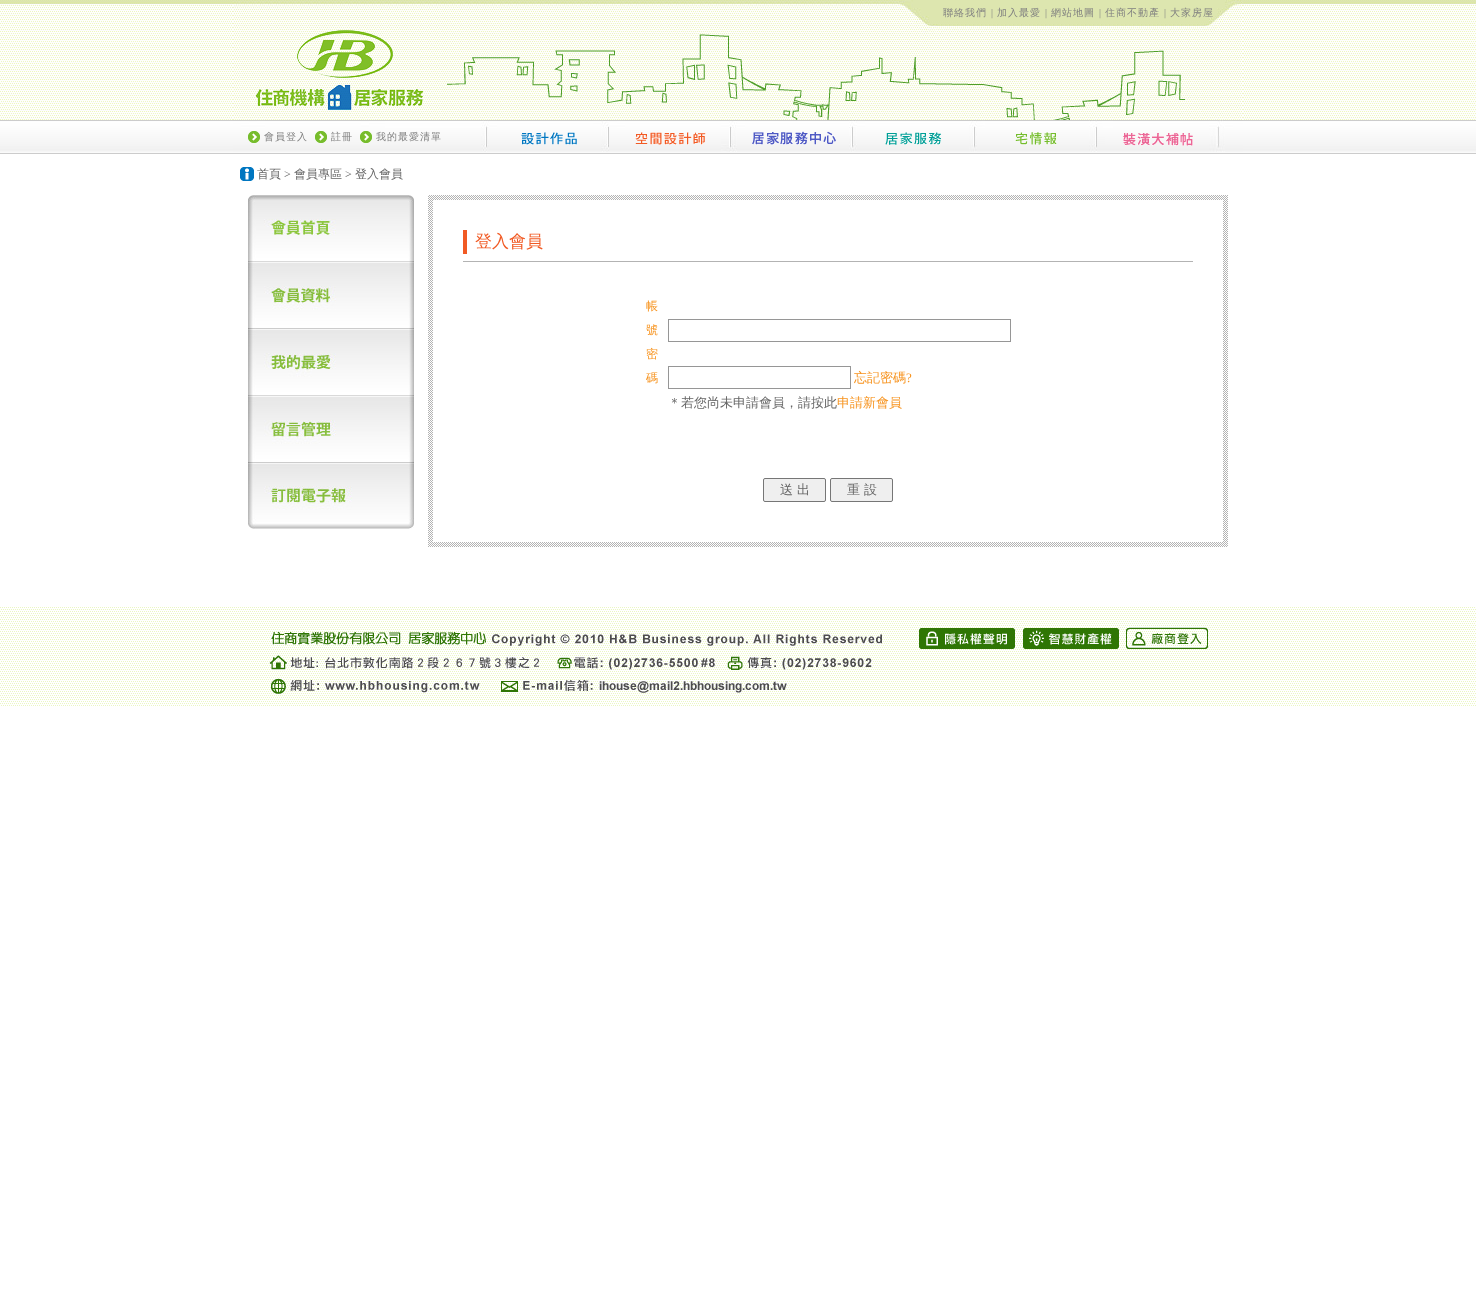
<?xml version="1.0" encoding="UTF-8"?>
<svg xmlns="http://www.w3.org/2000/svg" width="1476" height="1315">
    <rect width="100%" height="100%" fill="#FFFFFF"/>
    <image x="0" y="0" width="1476" height="154" href="img_01.png"/>
    <image x="233" y="0" width="1010" height="152" href="img_02.png"/>
    <text x="943" y="16" font-family="WenQuanYi Zen Hei" font-size="10" font-weight="500" letter-spacing="1" fill="#808080">聯絡我們</text>
    <text x="991" y="16" font-family="Liberation Serif" font-size="10" letter-spacing="1" fill="#808080">|</text>
    <text x="997" y="16" font-family="WenQuanYi Zen Hei" font-size="10" font-weight="500" letter-spacing="1" fill="#808080">加入最愛</text>
    <text x="1045" y="16" font-family="Liberation Serif" font-size="10" letter-spacing="1" fill="#808080">|</text>
    <text x="1051" y="16" font-family="WenQuanYi Zen Hei" font-size="10" font-weight="500" letter-spacing="1" fill="#808080">網站地圖</text>
    <text x="1099" y="16" font-family="Liberation Serif" font-size="10" letter-spacing="1" fill="#808080">|</text>
    <text x="1105" y="16" font-family="WenQuanYi Zen Hei" font-size="10" font-weight="500" letter-spacing="1" fill="#808080">住商不動產</text>
    <text x="1164" y="16" font-family="Liberation Serif" font-size="10" letter-spacing="1" fill="#808080">|</text>
    <text x="1170" y="16" font-family="WenQuanYi Zen Hei" font-size="10" font-weight="500" letter-spacing="1" fill="#808080">大家房屋</text>
    <image x="256" y="30" width="929" height="90" href="img_03.png"/>
    <image x="248" y="131" width="12" height="12" href="img_04.png"/>
    <text x="264" y="140" font-family="WenQuanYi Zen Hei" font-size="10" font-weight="500" letter-spacing="1" fill="#808080">會員登入</text>
    <image x="315" y="131" width="12" height="12" href="img_04.png"/>
    <text x="331" y="140" font-family="WenQuanYi Zen Hei" font-size="10" font-weight="500" letter-spacing="1" fill="#808080">註冊</text>
    <image x="360" y="131" width="12" height="12" href="img_04.png"/>
    <text x="376" y="140" font-family="WenQuanYi Zen Hei" font-size="10" font-weight="500" letter-spacing="1" fill="#808080">我的最愛清單</text>
    <image x="521" y="132" width="56" height="13" href="img_05.png"/>
    <image x="635" y="132" width="71" height="13" href="img_06.png"/>
    <image x="752" y="131" width="84" height="14" href="img_07.png"/>
    <image x="885" y="132" width="57" height="13" href="img_08.png"/>
    <image x="1015" y="132" width="42" height="13" href="img_09.png"/>
    <image x="1123" y="132" width="70" height="14" href="img_10.png"/>
    <image x="240" y="167" width="14" height="14" href="img_11.png"/>
    <text x="257" y="178" font-family="WenQuanYi Zen Hei" font-size="12" font-weight="500" fill="#666666">首頁</text>
    <text x="284" y="178" font-family="Liberation Serif" font-size="12" fill="#666666">&gt;</text>
    <text x="294" y="178" font-family="WenQuanYi Zen Hei" font-size="12" font-weight="500" fill="#666666">會員專區</text>
    <text x="345" y="178" font-family="Liberation Serif" font-size="12" fill="#666666">&gt;</text>
    <text x="355" y="178" font-family="WenQuanYi Zen Hei" font-size="12" font-weight="500" fill="#666666">登入會員</text>
    <image x="248" y="195" width="166" height="67" href="img_12.png"/>
    <image x="248" y="262" width="166" height="67" href="img_13.png"/>
    <image x="248" y="329" width="166" height="67" href="img_14.png"/>
    <image x="248" y="396" width="166" height="66" href="img_15.png"/>
    <image x="248" y="462" width="166" height="67" href="img_16.png"/>
    <image x="428" y="195" width="800" height="352" href="img_17.png"/>
    <rect x="433" y="200" width="790" height="342" fill="#FFFFFF"/>
    <rect x="463" y="230" width="4" height="24" fill="#F15A24"/>
    <rect x="463" y="261" width="730" height="1" fill="#B3B3B3"/>
    <text x="475" y="247" font-family="WenQuanYi Zen Hei" font-size="17" font-weight="500" fill="#F15A24">登入會員</text>
    <text x="646" y="310" font-family="WenQuanYi Zen Hei" font-size="12" font-weight="500" fill="#F7931E">帳</text>
    <text x="646" y="334" font-family="WenQuanYi Zen Hei" font-size="12" font-weight="500" fill="#F7931E">號</text>
    <rect x="668.5" y="319.5" width="342" height="22" fill="none" stroke="#969696"/>
    <text x="646" y="358" font-family="WenQuanYi Zen Hei" font-size="12" font-weight="500" fill="#F7931E">密</text>
    <text x="646" y="382" font-family="WenQuanYi Zen Hei" font-size="12" font-weight="500" fill="#F7931E">碼</text>
    <rect x="668.5" y="366.5" width="182" height="22" fill="none" stroke="#969696"/>
    <text x="854" y="382" font-family="WenQuanYi Zen Hei" font-size="13" font-weight="500" fill="#F7931E">忘記密碼</text>
    <text x="906" y="382" font-family="Liberation Serif" font-size="13" fill="#F7931E">?</text>
    <text x="668" y="407" font-family="WenQuanYi Zen Hei" font-size="13" font-weight="500" fill="#666666">＊若您尚未申請會員，請按此</text>
    <text x="837" y="407" font-family="WenQuanYi Zen Hei" font-size="13" font-weight="500" fill="#F7931E">申請新會員</text>
    <rect x="763.5" y="478.5" width="62" height="23" rx="1.5" fill="#EFEFEF" stroke="#767676"/>
    <text x="780" y="494" font-family="WenQuanYi Zen Hei" font-size="13" font-weight="500" fill="#666666">送 出</text>
    <rect x="830.5" y="478.5" width="62" height="23" rx="1.5" fill="#EFEFEF" stroke="#767676"/>
    <text x="847" y="494" font-family="WenQuanYi Zen Hei" font-size="13" font-weight="500" fill="#666666">重 設</text>
    <image x="0" y="607" width="1476" height="99" href="img_18.png"/>
    <image x="269" y="627" width="940" height="67" href="img_19.png"/>
</svg>
